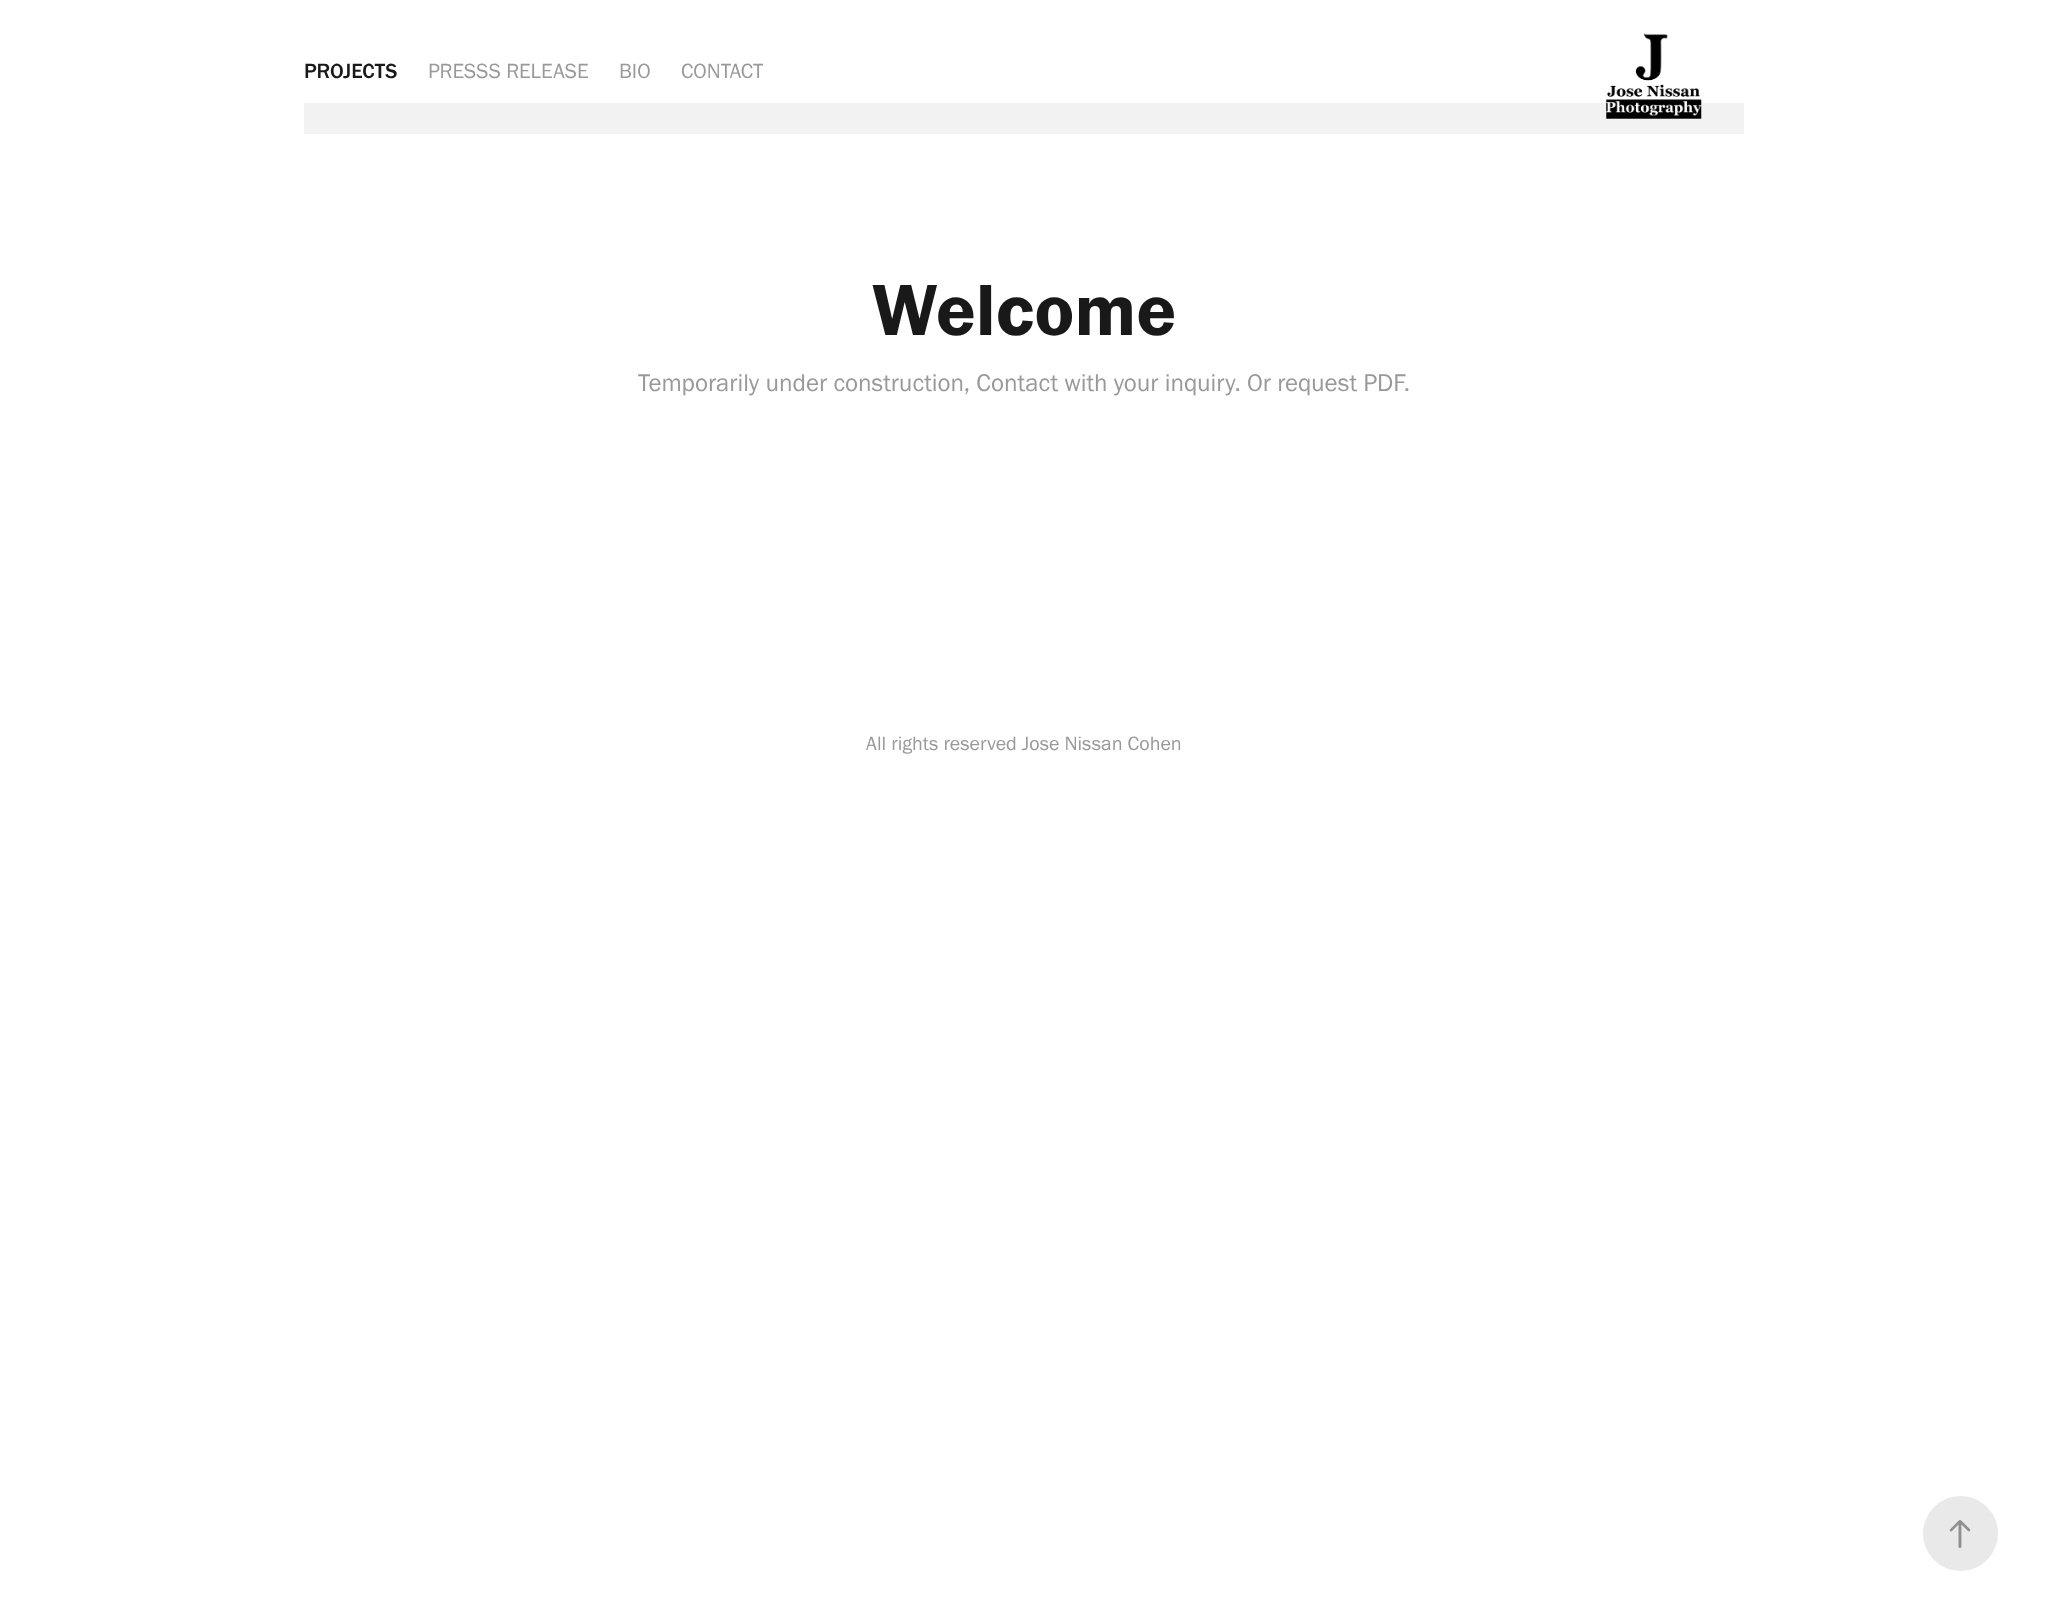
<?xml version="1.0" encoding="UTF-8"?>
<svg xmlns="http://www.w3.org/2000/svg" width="2047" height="1621">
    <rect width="100%" height="100%" fill="#FFFFFF"/>
    <rect x="304" y="103" width="1440" height="31" fill="#F2F2F2"/>
    <text x="304" y="78" font-family="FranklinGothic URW" font-size="21.25" font-weight="500" fill="#191919">PROJECTS</text>
    <text x="428" y="78" font-family="FranklinGothic URW" font-size="21.25" fill="#999999">PRESSS RELEASE</text>
    <text x="619" y="78" font-family="FranklinGothic URW" font-size="21.25" fill="#999999">BIO</text>
    <text x="681" y="78" font-family="FranklinGothic URW" font-size="21.25" fill="#999999">CONTACT</text>
    <image x="1606" y="33" width="96" height="86" href="img_01.png"/>
    <text x="872" y="335" font-family="FranklinGothic URW" font-size="75" font-weight="600" fill="#191919">Welcome</text>
    <text x="638" y="391" font-family="FranklinGothic URW" font-size="25" fill="#999999">Temporarily under construction, Contact with your inquiry. Or request PDF.</text>
    <text x="866" y="750" font-family="FranklinGothic URW" font-size="20" fill="#999999">All rights reserved Jose Nissan Cohen</text>
    <circle cx="1960.5" cy="1533.5" r="37.5" fill="#E9E9E9"/>
    <image x="1949" y="1520" width="22" height="28" href="img_02.png"/>
</svg>
